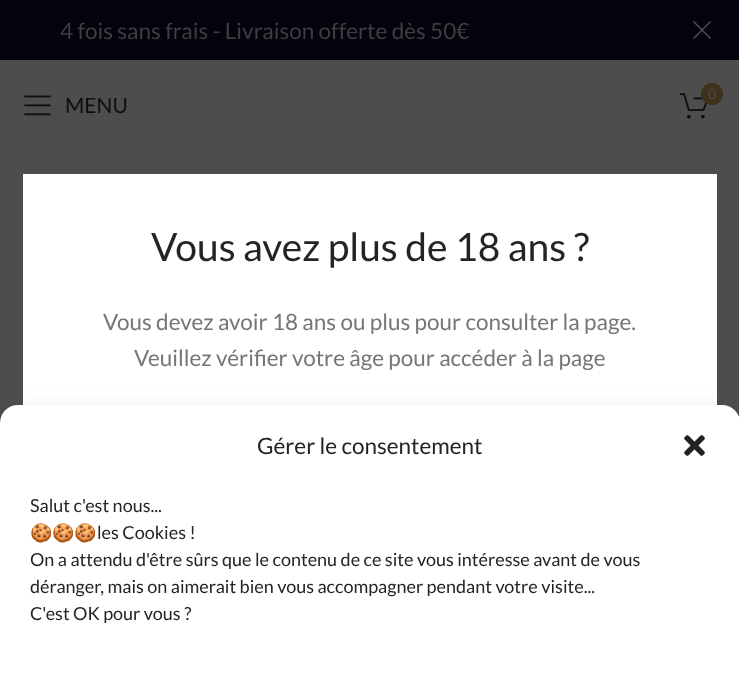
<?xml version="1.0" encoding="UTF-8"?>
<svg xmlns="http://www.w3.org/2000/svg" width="739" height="687">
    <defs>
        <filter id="blur1" x="-50%" y="-200%" width="200%" height="500%"><feGaussianBlur stdDeviation="4.5"/></filter>
        <filter id="blur2" x="-50%" y="-200%" width="200%" height="500%"><feGaussianBlur stdDeviation="15"/></filter>
    </defs>
    <rect width="100%" height="100%" fill="#4D4D4D"/>
    <rect x="0" y="0" width="739" height="60" fill="#02030C"/>
    <text x="60" y="39" font-family="Lato" font-size="22.5" fill="#3E3E40">4 fois sans frais - Livraison offerte dès 50€</text>
    <image x="692" y="20" width="20" height="20" href="img_01.png"/>
    <image x="679" y="93" width="29" height="26" href="img_02.png"/>
    <circle cx="712" cy="94" r="11" fill="#3E311C"/>
    <text x="708" y="99" font-family="Lato" font-size="14" fill="#4D4D4D">0</text>
    <image x="24" y="95" width="27" height="21" href="img_03.png"/>
    <text x="65" y="113" font-family="Lato" font-size="21" fill="#0F0F0F">MENU</text>
    <rect x="23" y="174" width="694" height="231" fill="#FFFFFF"/>
    <text x="151" y="261" font-family="Lato" font-size="39" fill="#242424">Vous avez plus de 18 ans ?</text>
    <text x="103" y="330" font-family="Lato" font-size="22.5" fill="#767676">Vous devez avoir 18 ans ou plus pour consulter la page.</text>
    <text x="134" y="366" font-family="Lato" font-size="22.5" fill="#767676">Veuillez vérifier votre âge pour accéder à la page</text>
    <rect x="0" y="414" width="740" height="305" rx="18" fill="#000000" fill-opacity="0.23" filter="url(#blur1)"/>
    <rect x="0" y="420" width="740" height="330" rx="18" fill="#000000" fill-opacity="0.19" filter="url(#blur2)"/>
    <rect x="0" y="405" width="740" height="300" rx="18" fill="#FFFFFF"/>
    <text x="257" y="454" font-family="Lato" font-size="22.5" fill="#242424">Gérer le consentement</text>
    <image x="684" y="435" width="21" height="21" href="img_04.png"/>
    <text x="30" y="512" font-family="Lato" font-size="18" fill="#242424">Salut c'est nous...</text>
    <text x="30" y="539" font-family="Noto Color Emoji" font-size="18" fill="#242424">🍪🍪🍪</text>
    <text x="97" y="539" font-family="Lato" font-size="18" fill="#242424">les Cookies !</text>
    <text font-family="Lato" font-size="18" fill="#242424">
        <tspan x="30" y="566">On a attendu d'être sûrs que le contenu de ce site vous intéresse avant de vous</tspan>
        <tspan x="30" y="593">déranger, mais on aimerait bien vous accompagner pendant votre visite...</tspan>
        <tspan x="30" y="620">C'est OK pour vous ?</tspan>
    </text>
</svg>
